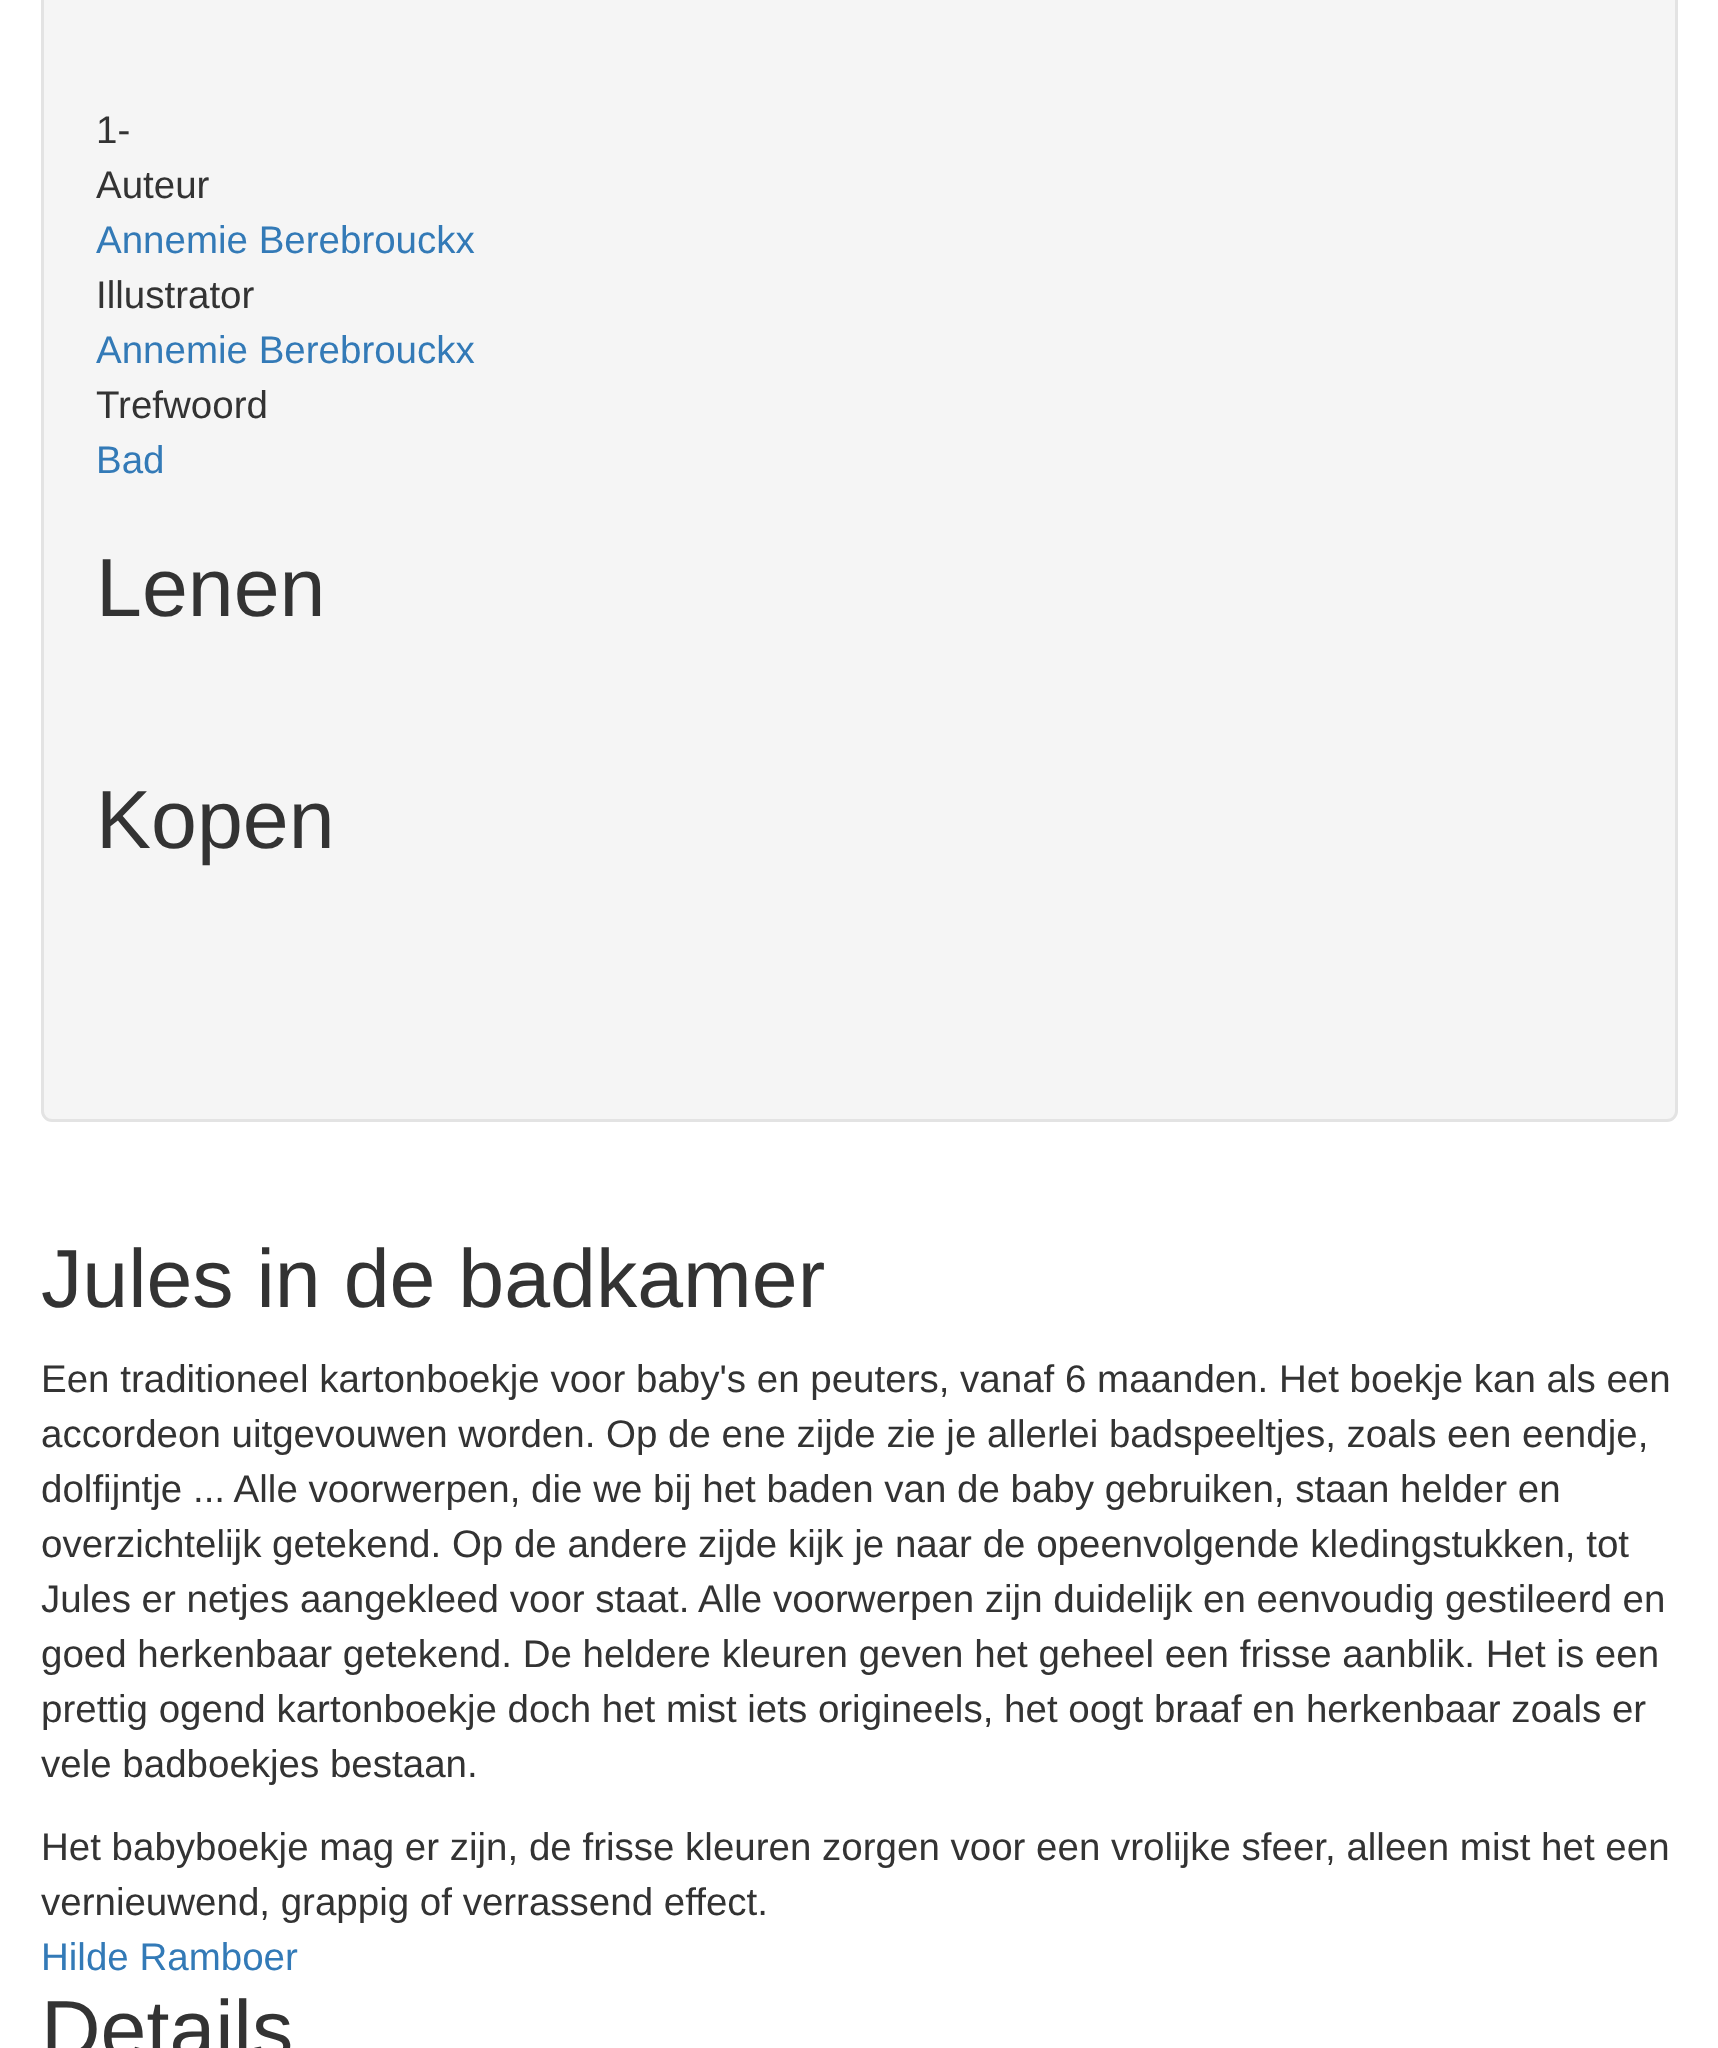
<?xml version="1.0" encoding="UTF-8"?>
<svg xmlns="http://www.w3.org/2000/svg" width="1718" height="2048">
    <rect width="100%" height="100%" fill="#FFFFFF"/>
    <rect x="42.5" y="-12.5" width="1634" height="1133" rx="9.5" fill="#F5F5F5" stroke="#E3E3E3" stroke-width="3"/>
    <text font-family="Liberation Sans" font-size="38.5" fill="#333333">
        <tspan x="96" y="143">1-</tspan>
        <tspan x="96" y="198">Auteur</tspan>
    </text>
    <text x="96" y="253" font-family="Liberation Sans" font-size="38.5" fill="#337AB7">Annemie Berebrouckx</text>
    <text x="96" y="308" font-family="Liberation Sans" font-size="38.5" fill="#333333">Illustrator</text>
    <text x="96" y="363" font-family="Liberation Sans" font-size="38.5" fill="#337AB7">Annemie Berebrouckx</text>
    <text x="96" y="418" font-family="Liberation Sans" font-size="38.5" fill="#333333">Trefwoord</text>
    <text x="96" y="473" font-family="Liberation Sans" font-size="38.5" fill="#337AB7">Bad</text>
    <text x="96" y="616" font-family="Liberation Sans" font-size="82.5" fill="#333333">Lenen</text>
    <text x="96" y="848" font-family="Liberation Sans" font-size="82.5" fill="#333333">Kopen</text>
    <text x="41" y="1307" font-family="Liberation Sans" font-size="82.5" fill="#333333">Jules in de badkamer</text>
    <text font-family="Liberation Sans" font-size="38.5" fill="#333333">
        <tspan x="41" y="1392">Een traditioneel kartonboekje voor baby's en peuters, vanaf 6 maanden. Het boekje kan als een</tspan>
        <tspan x="41" y="1447">accordeon uitgevouwen worden. Op de ene zijde zie je allerlei badspeeltjes, zoals een eendje,</tspan>
        <tspan x="41" y="1502">dolfijntje ... Alle voorwerpen, die we bij het baden van de baby gebruiken, staan helder en</tspan>
        <tspan x="41" y="1557">overzichtelijk getekend. Op de andere zijde kijk je naar de opeenvolgende kledingstukken, tot</tspan>
        <tspan x="41" y="1612">Jules er netjes aangekleed voor staat. Alle voorwerpen zijn duidelijk en eenvoudig gestileerd en</tspan>
        <tspan x="41" y="1667">goed herkenbaar getekend. De heldere kleuren geven het geheel een frisse aanblik. Het is een</tspan>
        <tspan x="41" y="1722">prettig ogend kartonboekje doch het mist iets origineels, het oogt braaf en herkenbaar zoals er</tspan>
        <tspan x="41" y="1777">vele badboekjes bestaan.</tspan>
    </text>
    <text font-family="Liberation Sans" font-size="38.5" fill="#333333">
        <tspan x="41" y="1860">Het babyboekje mag er zijn, de frisse kleuren zorgen voor een vrolijke sfeer, alleen mist het een</tspan>
        <tspan x="41" y="1915">vernieuwend, grappig of verrassend effect.</tspan>
    </text>
    <text x="41" y="1970" font-family="Liberation Sans" font-size="38.5" fill="#337AB7">Hilde Ramboer</text>
    <text x="41" y="2058" font-family="Liberation Sans" font-size="82.5" fill="#333333">Details</text>
</svg>
